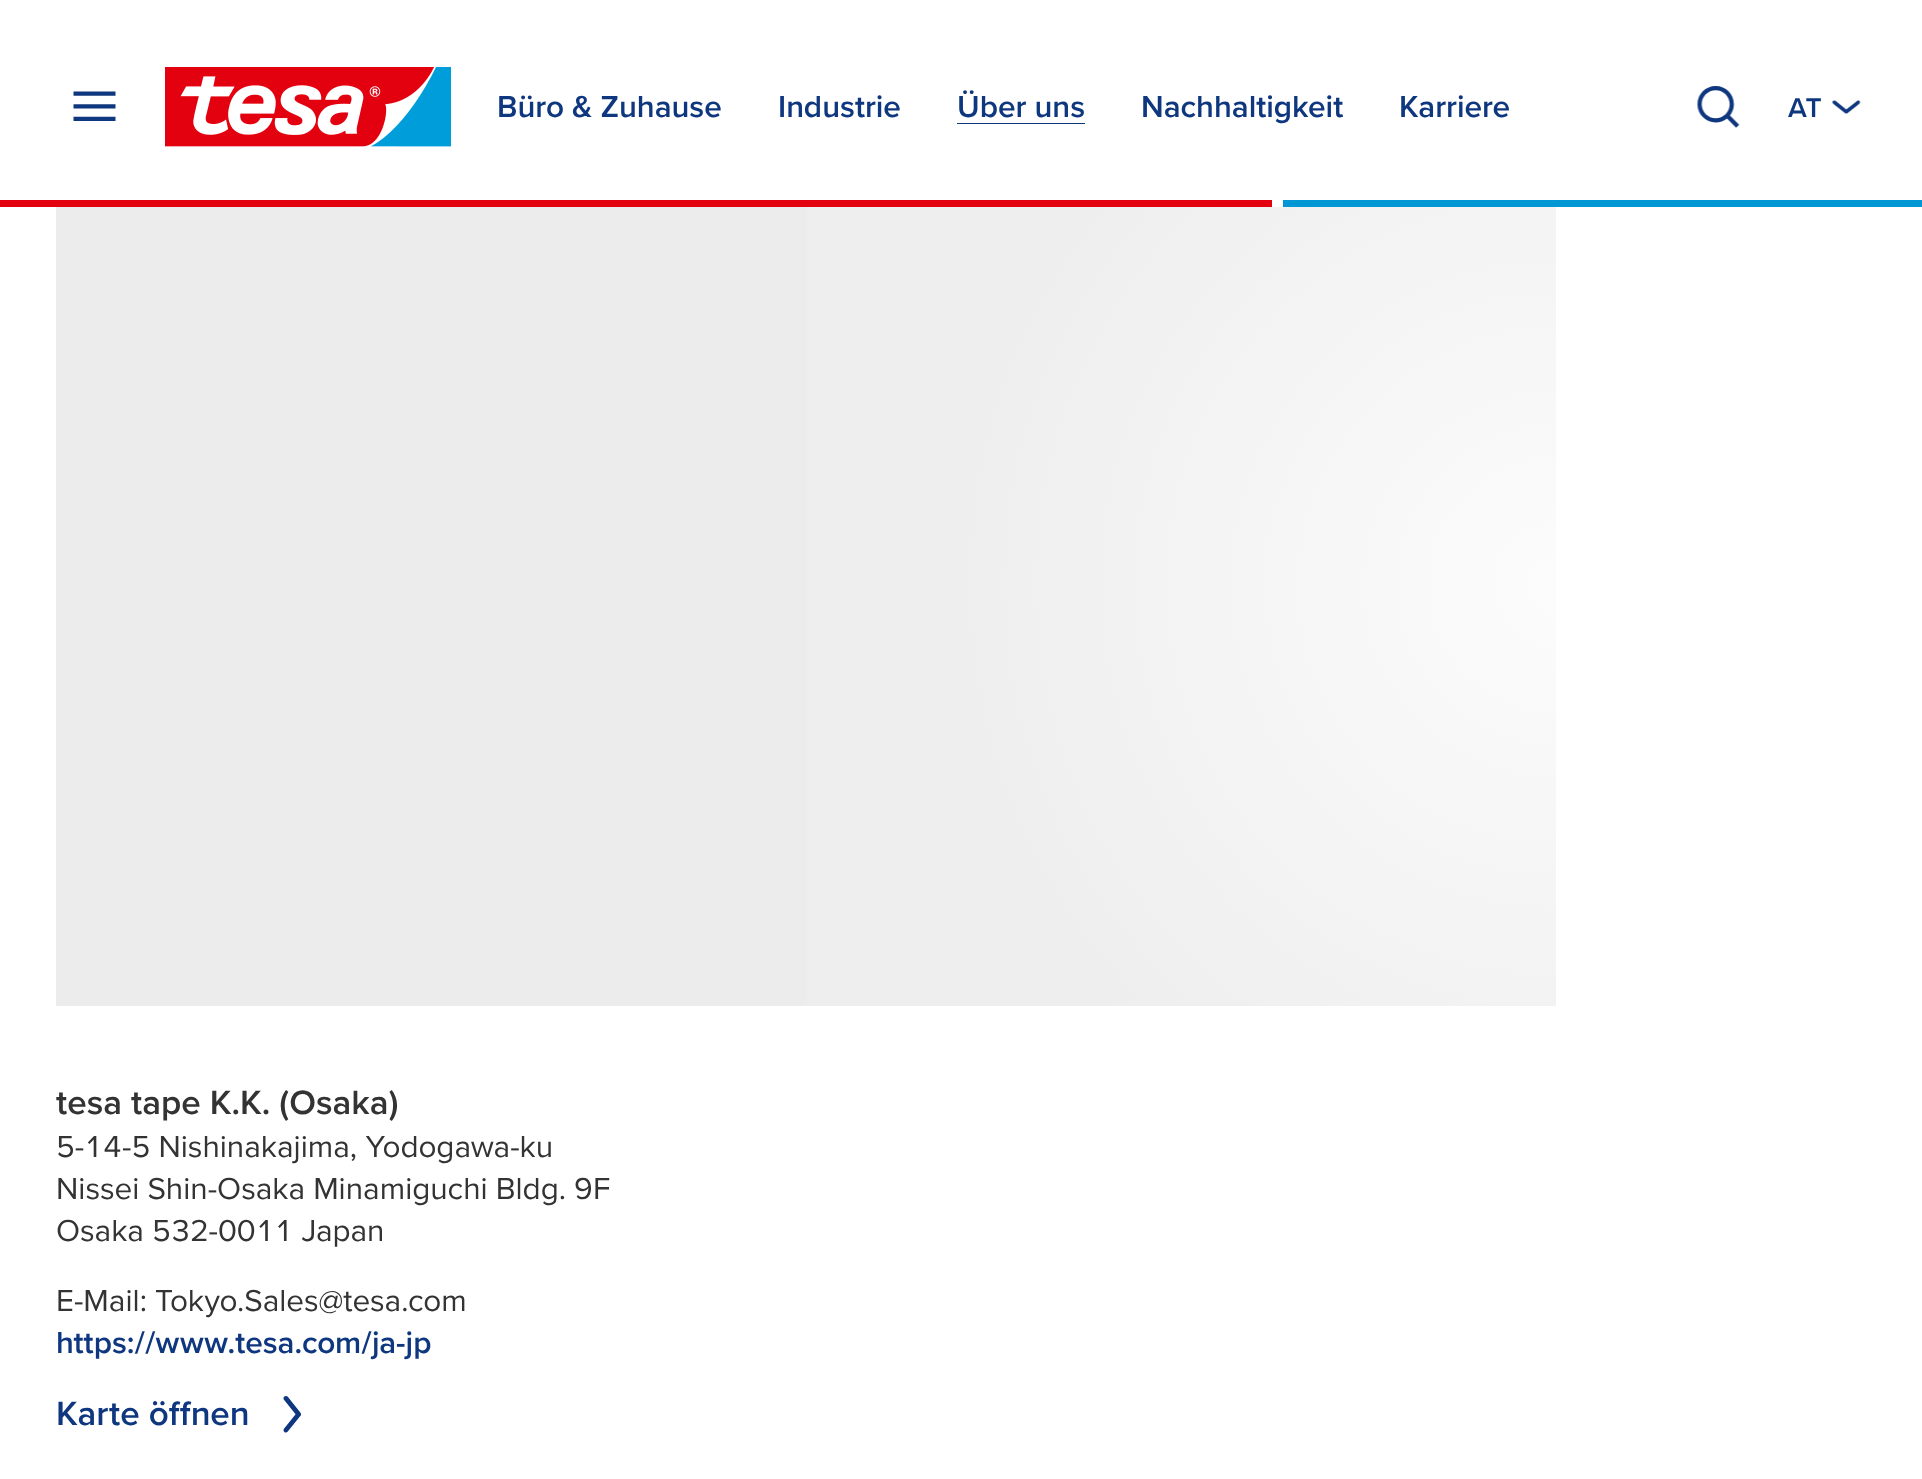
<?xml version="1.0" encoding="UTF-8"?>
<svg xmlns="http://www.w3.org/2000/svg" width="1922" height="1479">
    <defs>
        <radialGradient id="g1" gradientUnits="userSpaceOnUse" cx="1556" cy="585" r="860"><stop offset="0" stop-color="#FCFCFC"/><stop offset="0.71" stop-color="#EEEEEE"/></radialGradient>
    </defs>
    <rect width="100%" height="100%" fill="#FFFFFF"/>
    <image x="73" y="91" width="43" height="30" href="img_01.png"/>
    <image x="165" y="67" width="286" height="80" href="img_02.png"/>
    <text x="497" y="117" font-family="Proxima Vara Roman" font-size="31.5" font-weight="600" fill="#0F377F">Büro &amp; Zuhause</text>
    <text x="778" y="117" font-family="Proxima Vara Roman" font-size="31.5" font-weight="600" fill="#0F377F">Industrie</text>
    <text x="957" y="117" font-family="Proxima Vara Roman" font-size="31.5" font-weight="600" fill="#0F377F">Über uns</text>
    <rect x="957" y="123" width="128" height="1" fill="#0F377F"/>
    <text x="1141" y="117" font-family="Proxima Vara Roman" font-size="31.5" font-weight="600" fill="#0F377F">Nachhaltigkeit</text>
    <text x="1399" y="117" font-family="Proxima Vara Roman" font-size="31.5" font-weight="600" fill="#0F377F">Karriere</text>
    <image x="1697" y="86" width="43" height="42" href="img_03.png"/>
    <text x="1788" y="117" font-family="Proxima Vara Roman" font-size="28" font-weight="600" fill="#0F377F">AT</text>
    <image x="1832" y="100" width="29" height="14" href="img_04.png"/>
    <rect x="1283" y="200" width="639" height="7" fill="#0097D4"/>
    <rect x="0" y="200" width="1272" height="7" fill="#E3000F"/>
    <rect x="56" y="207" width="751" height="799" fill="#ECECED"/>
    <rect x="807" y="207" width="749" height="799" fill="url(#g1)"/>
    <text x="56" y="1114" font-family="Proxima Vara Roman" font-size="35" font-weight="600" fill="#333333">tesa tape K.K. (Osaka)</text>
    <text font-family="Proxima Vara Roman" font-size="31.5" fill="#333333">
        <tspan x="56" y="1157">5-14-5 Nishinakajima, Yodogawa-ku</tspan>
        <tspan x="56" y="1199">Nissei Shin-Osaka Minamiguchi Bldg. 9F</tspan>
        <tspan x="56" y="1241">Osaka 532-0011 Japan</tspan>
    </text>
    <text x="56" y="1311" font-family="Proxima Vara Roman" font-size="31.5" fill="#333333">E-Mail: Tokyo.Sales@tesa.com</text>
    <text x="56" y="1353" font-family="Proxima Vara Roman" font-size="31.5" font-weight="600" fill="#0F377F">https://www.tesa.com/ja-jp</text>
    <text x="56" y="1425" font-family="Proxima Vara Roman" font-size="35" font-weight="600" fill="#0F377F">Karte öffnen</text>
    <image x="283" y="1396" width="18" height="37" href="img_05.png"/>
</svg>
